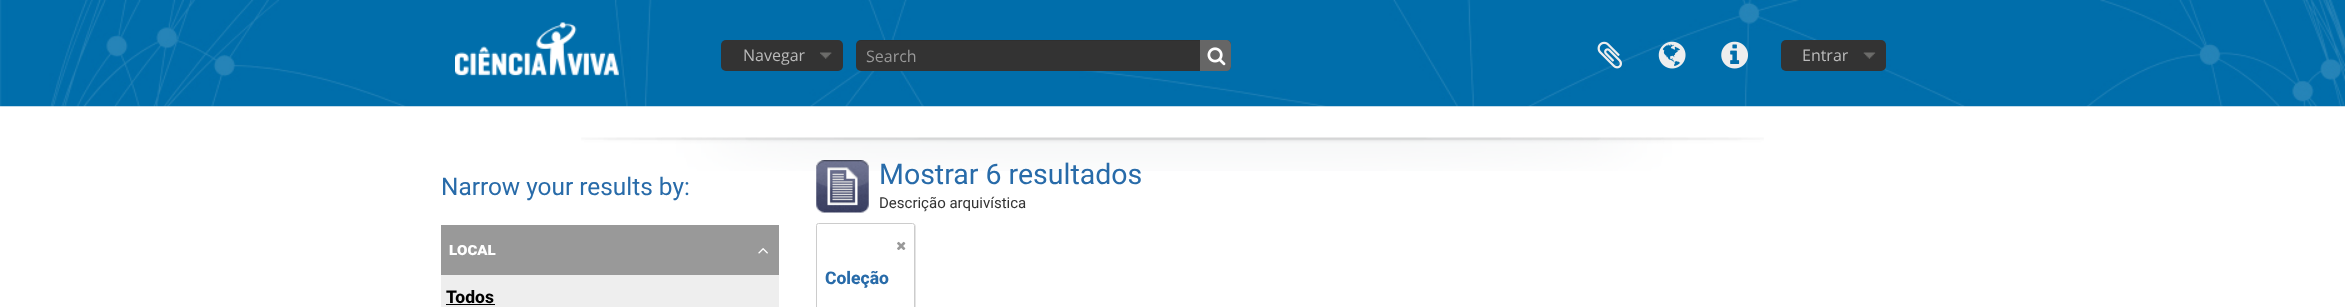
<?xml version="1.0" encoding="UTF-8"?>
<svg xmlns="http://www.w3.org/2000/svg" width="2345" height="307">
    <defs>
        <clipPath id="clip1"><rect x="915" y="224" width="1" height="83"/></clipPath>
        <filter id="blur1" x="-50%" y="-200%" width="200%" height="500%"><feGaussianBlur stdDeviation="0.5"/></filter>
    </defs>
    <rect width="100%" height="100%" fill="#FFFFFF"/>
    <image x="0" y="0" width="2345" height="107" href="img_01.png"/>
    <image x="455" y="22" width="164" height="54" href="img_02.png"/>
    <rect x="721" y="40" width="122" height="31" rx="5" fill="#333333"/>
    <image x="820" y="52" width="12" height="7" href="img_03.png"/>
    <text x="743" y="61" font-family="Open Sans" font-size="16" fill="#BBBBBB">Navegar</text>
    <rect x="856" y="40" width="375" height="31" rx="5" fill="#333333"/>
    <path d="M 861 41 H 1226 C 1229 41 1231 43 1231 46 V 45 C 1231 42 1229 40 1226 40 H 861 C 858 40 856 42 856 45 V 46 C 856 43 858 41 861 41 Z" fill="#000000" fill-opacity="0.07"/>
    <text x="866" y="62" font-family="Open Sans" font-size="16" fill="#999999">Search</text>
    <path d="M 1200 40 H 1226 C 1229 40 1231 42 1231 45 V 66 C 1231 69 1229 71 1226 71 H 1200 Z" fill="#666666"/>
    <image x="1207" y="47" width="19" height="19" href="img_04.png"/>
    <image x="1597" y="41" width="25" height="28" href="img_05.png"/>
    <image x="1658" y="41" width="28" height="28" href="img_06.png"/>
    <image x="1721" y="41" width="27" height="28" href="img_07.png"/>
    <rect x="1781" y="40" width="105" height="31" rx="5" fill="#333333"/>
    <image x="1863" y="52" width="13" height="7" href="img_08.png"/>
    <text x="1802" y="61" font-family="Open Sans" font-size="16" fill="#BBBBBB">Entrar</text>
    <image x="581" y="137" width="1183" height="34" href="img_09.png"/>
    <text x="441" y="195" font-family="Roboto" font-size="24.4" fill="#286BA9">Narrow your results by:</text>
    <rect x="441" y="225" width="338" height="50" fill="#999999"/>
    <text x="449" y="255" font-family="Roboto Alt" font-size="17.5" font-weight="800" fill="#FFFFFF">local</text>
    <image x="758" y="248" width="10" height="6" href="img_10.png"/>
    <rect x="441" y="275" width="338" height="32" fill="#EEEEEE"/>
    <text x="446" y="303" font-family="Roboto" font-size="17.5" font-weight="800" fill="#000000">Todos</text>
    <rect x="446" y="304" width="49" height="1" fill="#000000"/>
    <image x="816" y="160" width="53" height="53" href="img_11.png"/>
    <text x="879" y="184" font-family="Roboto" font-size="28.5" fill="#286BA9">Mostrar 6 resultados</text>
    <text x="879" y="208" font-family="Roboto" font-size="15" fill="#333333">Descrição arquivística</text>
    <g clip-path="url(#clip1)">
        <rect x="818" y="224" width="98" height="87" rx="2.5" fill="#000000" fill-opacity="0.1" filter="url(#blur1)"/>
    </g>
    <rect x="816.5" y="223.5" width="98" height="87" rx="2" fill="none" stroke="#CCCCCC"/>
    <image x="897" y="241" width="9" height="9" href="img_12.png"/>
    <text x="825" y="284" font-family="Roboto" font-size="17.5" font-weight="800" fill="#286BA9">Coleção</text>
</svg>
